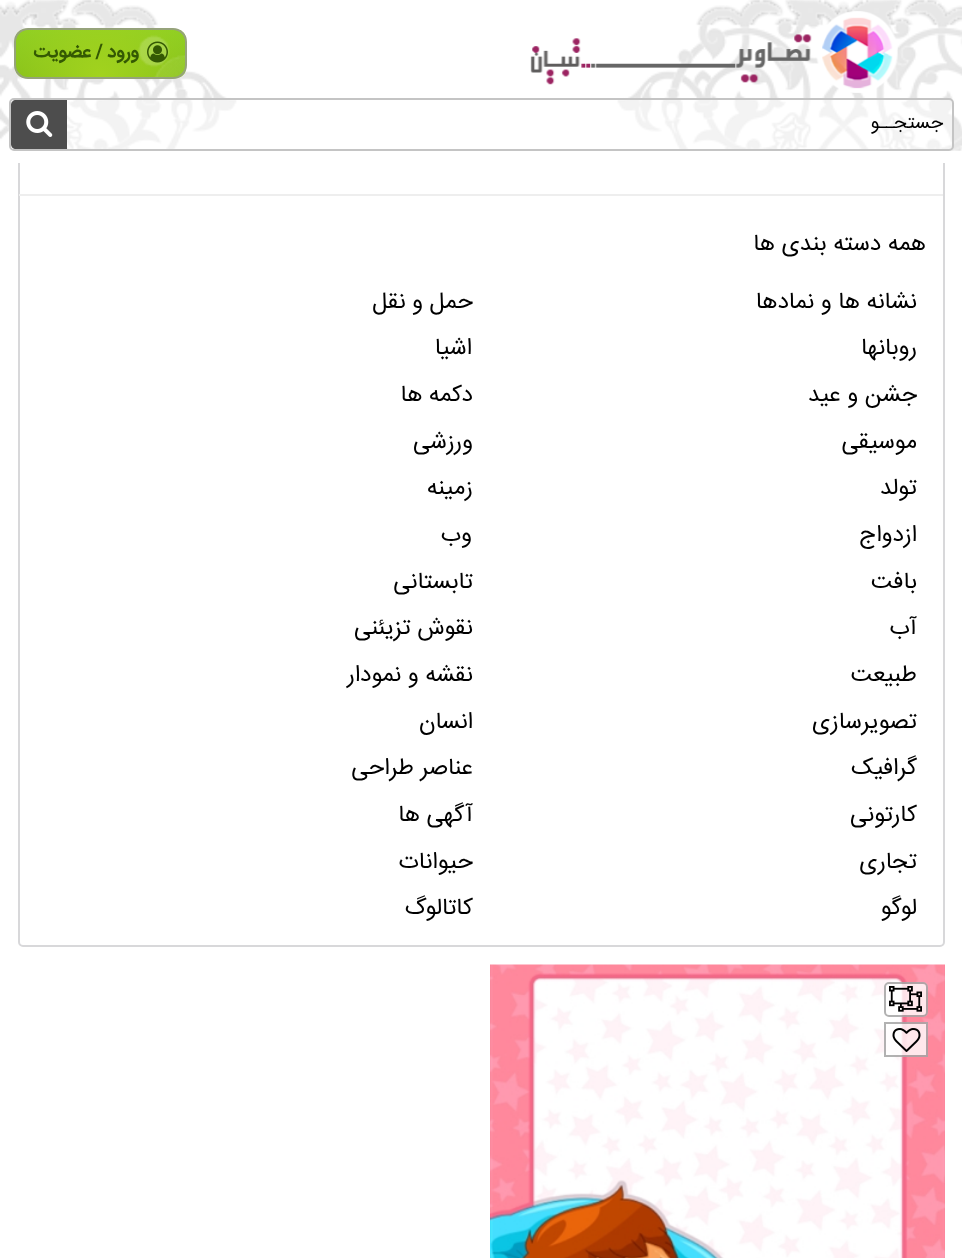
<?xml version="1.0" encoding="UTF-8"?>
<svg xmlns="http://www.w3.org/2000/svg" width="962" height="1258">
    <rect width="100%" height="100%" fill="#FFFFFF"/>
    <rect x="19" y="-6" width="925" height="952" rx="4" fill="none" stroke="#D8D8DA" stroke-width="2"/>
    <rect x="18" y="0" width="927" height="163" fill="#FFFFFF"/>
    <image x="0" y="0" width="237" height="149" href="img_04.png"/>
    <image x="15" y="30" width="172" height="49" href="img_01.png"/>
    <rect x="15" y="29" width="171" height="49" rx="13" fill="none" stroke="#96A37B" stroke-width="2"/>
    <image x="147" y="41" width="21" height="22" href="img_02.png"/>
    <text x="139" y="57" font-family="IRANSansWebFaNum" font-size="18.5" font-weight="700" direction="rtl" fill="#345903">ورود / عضویت</text>
    <image x="617" y="0" width="345" height="151" href="img_03.png"/>
    <image x="530" y="11" width="368" height="82" href="img_05.png"/>
    <rect x="10" y="99" width="943" height="51" rx="4" fill="#FFFFFF" fill-opacity="0.5" stroke="#C4C4C4" stroke-width="2"/>
    <text x="943" y="128" font-family="IRANSansWebFaNum" font-size="19" direction="rtl" fill="#000000">جستجــو</text>
    <path d="M 16 100 H 67 V 149 H 16 C 13 149 11 147 11 144 V 105 C 11 102 13 100 16 100 Z" fill="#4D4D4D"/>
    <image x="26" y="111" width="27" height="26" href="img_06.png"/>
    <rect x="19" y="194" width="924" height="2" fill="#EEEEEE"/>
    <text x="926" y="250" font-family="IRANSansWebFaNum" font-size="23.25" direction="rtl" fill="#000000">همه دسته بندی ها</text>
    <text x="917" y="308" font-family="IRANSansWebFaNum" font-size="23.25" direction="rtl" fill="#000000">نشانه ها و نمادها</text>
    <text x="473" y="308" font-family="IRANSansWebFaNum" font-size="23.25" direction="rtl" fill="#000000">حمل و نقل</text>
    <text x="917" y="354" font-family="IRANSansWebFaNum" font-size="23.25" direction="rtl" fill="#000000">روبانها</text>
    <text x="472" y="354" font-family="IRANSansWebFaNum" font-size="23.25" direction="rtl" fill="#000000">اشیا</text>
    <text x="917" y="401" font-family="IRANSansWebFaNum" font-size="23.25" direction="rtl" fill="#000000">جشن و عید</text>
    <text x="473" y="401" font-family="IRANSansWebFaNum" font-size="23.25" direction="rtl" fill="#000000">دکمه ها</text>
    <text x="917" y="448" font-family="IRANSansWebFaNum" font-size="23.25" direction="rtl" fill="#000000">موسیقی</text>
    <text x="473" y="448" font-family="IRANSansWebFaNum" font-size="23.25" direction="rtl" fill="#000000">ورزشی</text>
    <text x="917" y="494" font-family="IRANSansWebFaNum" font-size="23.25" direction="rtl" fill="#000000">تولد</text>
    <text x="473" y="494" font-family="IRANSansWebFaNum" font-size="23.25" direction="rtl" fill="#000000">زمینه</text>
    <text x="917" y="541" font-family="IRANSansWebFaNum" font-size="23.25" direction="rtl" fill="#000000">ازدواج</text>
    <text x="472" y="541" font-family="IRANSansWebFaNum" font-size="23.25" direction="rtl" fill="#000000">وب</text>
    <text x="917" y="588" font-family="IRANSansWebFaNum" font-size="23.25" direction="rtl" fill="#000000">بافت</text>
    <text x="473" y="588" font-family="IRANSansWebFaNum" font-size="23.25" direction="rtl" fill="#000000">تابستانی</text>
    <text x="917" y="634" font-family="IRANSansWebFaNum" font-size="23.25" direction="rtl" fill="#000000">آب</text>
    <text x="473" y="634" font-family="IRANSansWebFaNum" font-size="23.25" direction="rtl" fill="#000000">نقوش تزیئنی</text>
    <text x="917" y="681" font-family="IRANSansWebFaNum" font-size="23.25" direction="rtl" fill="#000000">طبیعت</text>
    <text x="473" y="681" font-family="IRANSansWebFaNum" font-size="23.25" direction="rtl" fill="#000000">نقشه و نمودار</text>
    <text x="917" y="728" font-family="IRANSansWebFaNum" font-size="23.25" direction="rtl" fill="#000000">تصویرسازی</text>
    <text x="473" y="728" font-family="IRANSansWebFaNum" font-size="23.25" direction="rtl" fill="#000000">انسان</text>
    <text x="917" y="774" font-family="IRANSansWebFaNum" font-size="23.25" direction="rtl" fill="#000000">گرافیک</text>
    <text x="473" y="774" font-family="IRANSansWebFaNum" font-size="23.25" direction="rtl" fill="#000000">عناصر طراحی</text>
    <text x="917" y="821" font-family="IRANSansWebFaNum" font-size="23.25" direction="rtl" fill="#000000">کارتونی</text>
    <text x="473" y="821" font-family="IRANSansWebFaNum" font-size="23.25" direction="rtl" fill="#000000">آگهی ها</text>
    <text x="917" y="868" font-family="IRANSansWebFaNum" font-size="23.25" direction="rtl" fill="#000000">تجاری</text>
    <text x="473" y="868" font-family="IRANSansWebFaNum" font-size="23.25" direction="rtl" fill="#000000">حیوانات</text>
    <text x="917" y="914" font-family="IRANSansWebFaNum" font-size="23.25" direction="rtl" fill="#000000">لوگو</text>
    <text x="473" y="914" font-family="IRANSansWebFaNum" font-size="23.25" direction="rtl" fill="#000000">کاتالوگ</text>
    <image x="490" y="964" width="455" height="294" href="img_07.png"/>
    <rect x="884" y="982" width="44" height="35" rx="5" fill="#FFFFFF" fill-opacity="0.8"/>
    <rect x="885" y="983" width="42" height="33" rx="4" fill="none" stroke="#000000" stroke-opacity="0.3" stroke-width="2"/>
    <image x="889" y="986" width="33" height="26" href="img_08.png"/>
    <rect x="884" y="1022" width="44" height="35" fill="#FFFFFF" fill-opacity="0.8"/>
    <rect x="885" y="1023" width="42" height="33" fill="none" stroke="#000000" stroke-opacity="0.3" stroke-width="2"/>
    <image x="892" y="1028" width="29" height="24" href="img_09.png"/>
</svg>
